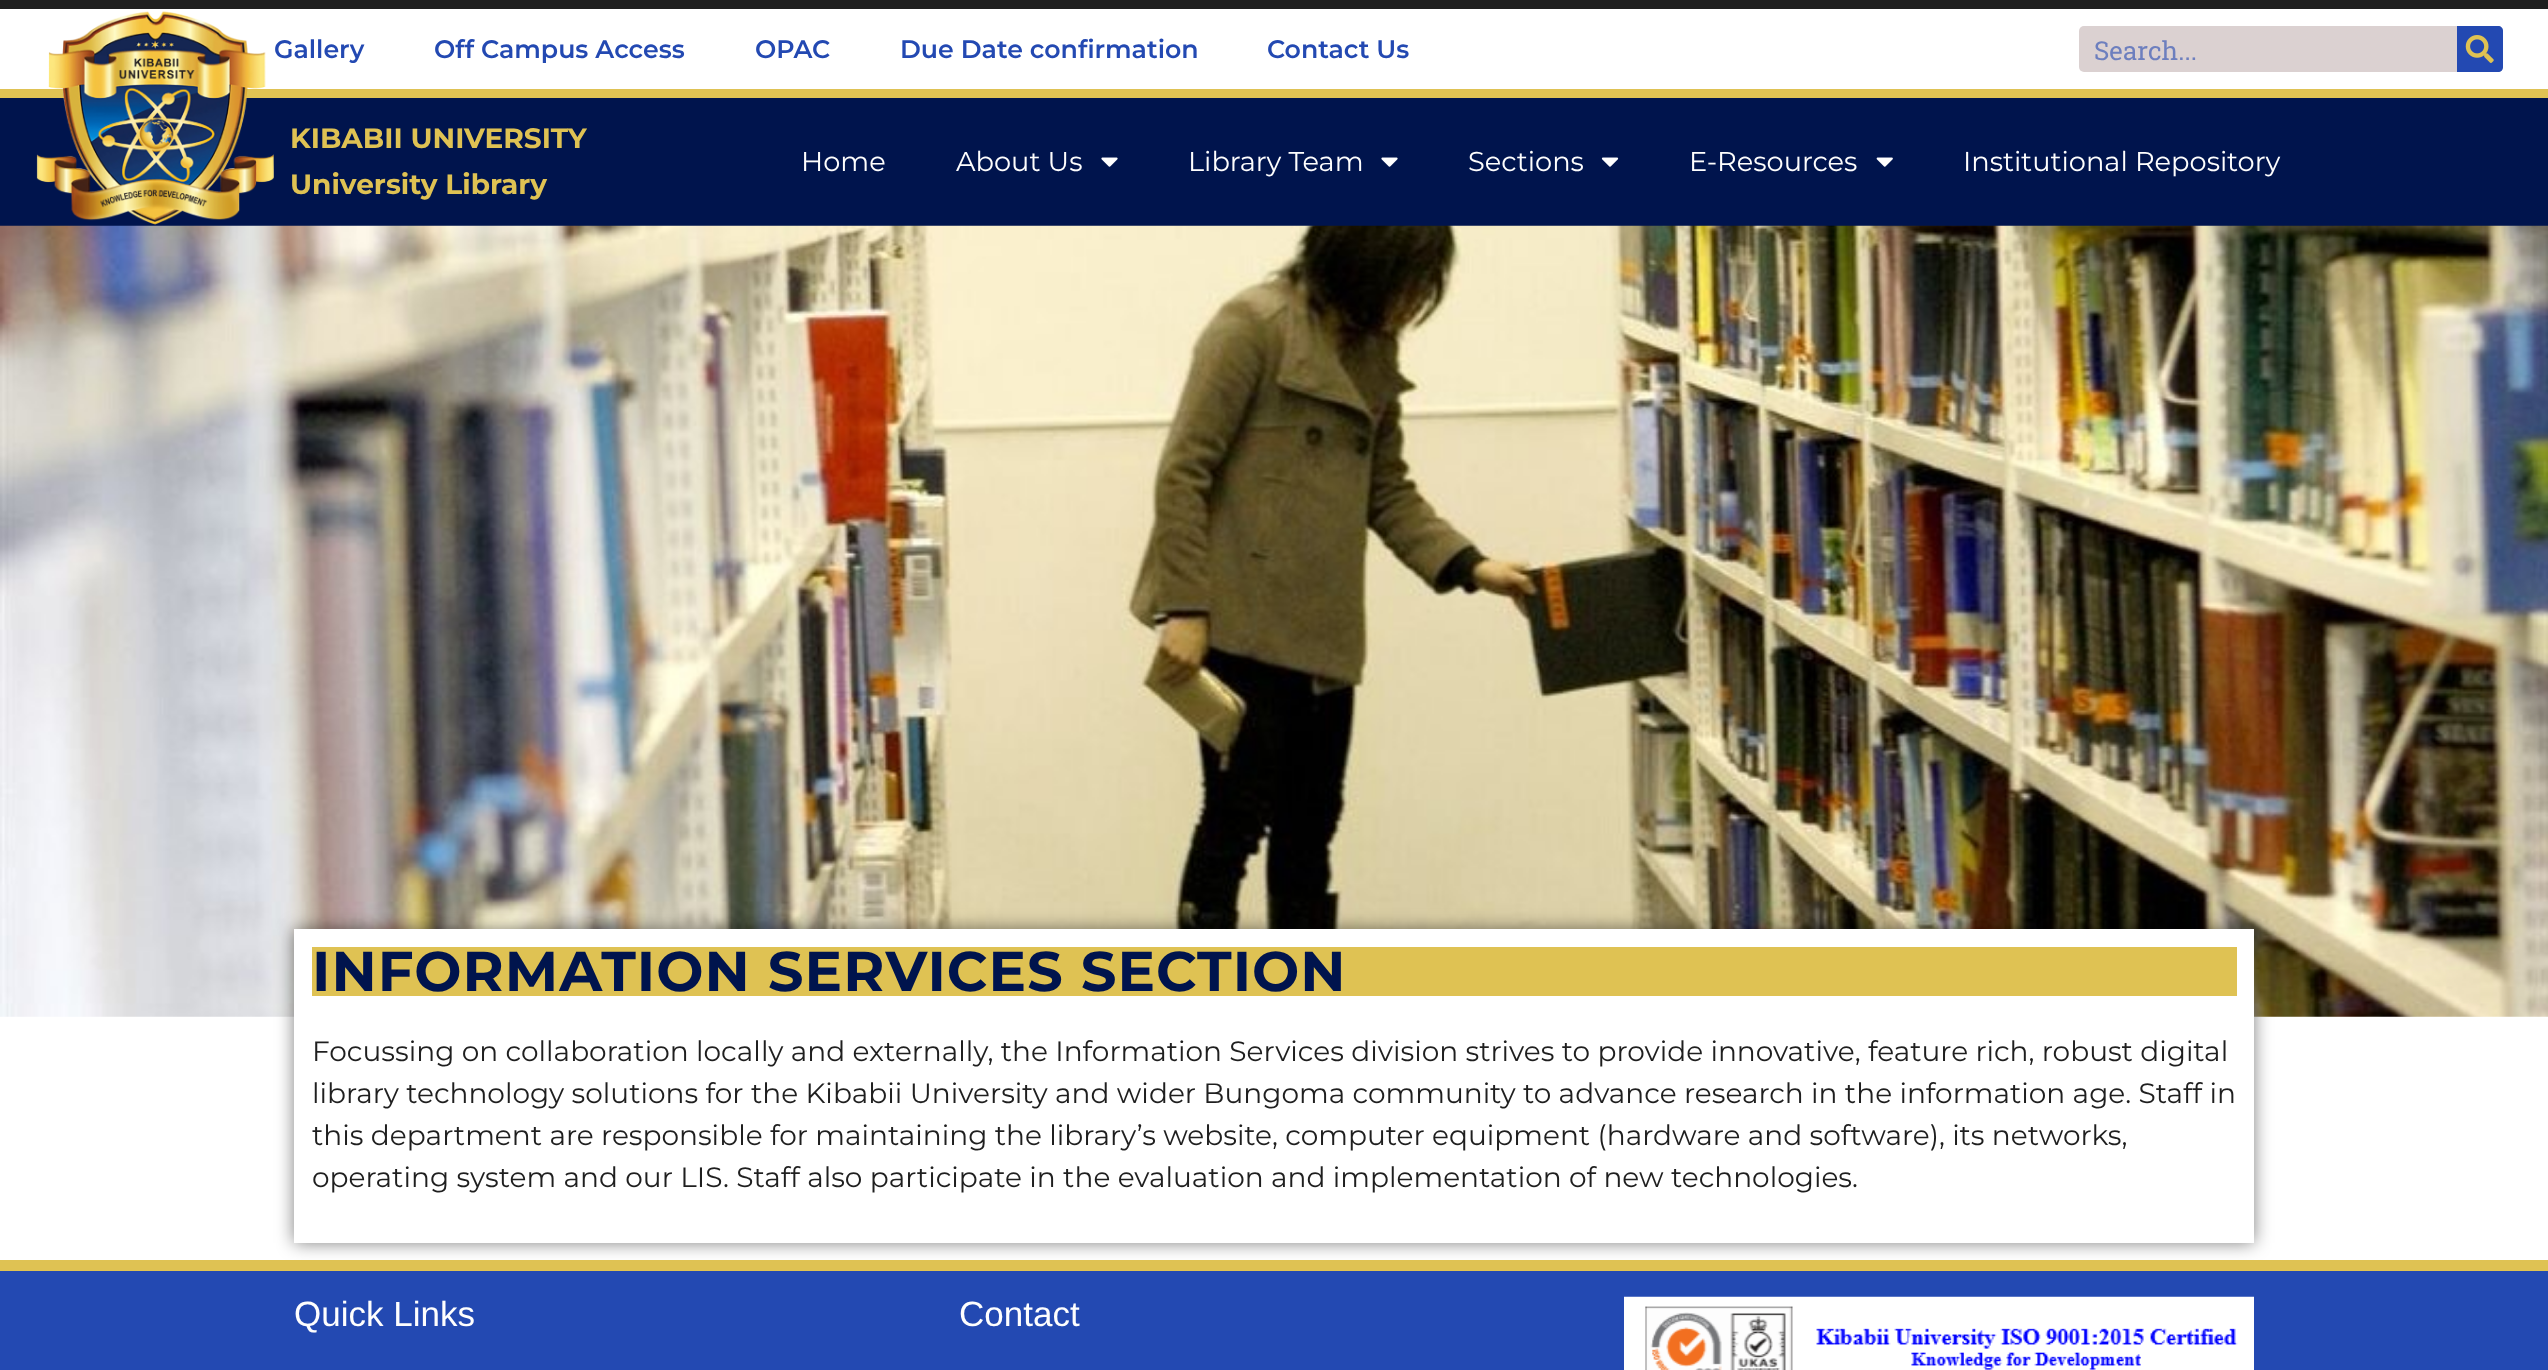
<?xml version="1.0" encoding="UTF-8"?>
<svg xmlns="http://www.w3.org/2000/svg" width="2548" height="1370">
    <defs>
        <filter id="blur1" x="-50%" y="-200%" width="200%" height="500%"><feGaussianBlur stdDeviation="9"/></filter>
    </defs>
    <rect width="100%" height="100%" fill="#FFFFFF"/>
    <rect x="0" y="0" width="2548" height="9" fill="#1F1F1F"/>
    <text x="274" y="58" font-family="Montserrat" font-size="25.25" font-weight="600" fill="#2349B2">Gallery</text>
    <text x="434" y="58" font-family="Montserrat" font-size="25.25" font-weight="600" fill="#2349B2">Off Campus Access</text>
    <text x="755" y="58" font-family="Montserrat" font-size="25.25" font-weight="600" fill="#2349B2">OPAC</text>
    <text x="900" y="58" font-family="Montserrat" font-size="25.25" font-weight="600" fill="#2349B2">Due Date confirmation</text>
    <text x="1267" y="58" font-family="Montserrat" font-size="25.25" font-weight="600" fill="#2349B2">Contact Us</text>
    <rect x="2079" y="26" width="424" height="46" rx="5" fill="#DBD1D1"/>
    <text x="2094" y="60" font-family="Roboto Slab" font-size="26" fill="#6D7FBE">Search...</text>
    <path d="M 2457 26 H 2498 C 2501 26 2503 28 2503 31 V 67 C 2503 70 2501 72 2498 72 H 2457 Z" fill="#2349B2"/>
    <image x="2465" y="35" width="29" height="28" href="img_01.png"/>
    <rect x="0" y="98" width="2548" height="128" fill="#00144D"/>
    <rect x="0" y="89" width="2548" height="9" fill="#DFC253"/>
    <image x="36" y="11" width="238" height="214" href="img_02.png"/>
    <text font-family="Montserrat" font-size="28" font-weight="700" fill="#DFC253">
        <tspan x="290" y="148">KIBABII UNIVERSITY</tspan>
        <tspan x="290" y="194">University Library</tspan>
    </text>
    <text x="801" y="171" font-family="Montserrat" font-size="27.25" fill="#FEFEFE">Home</text>
    <text x="956" y="171" font-family="Montserrat" font-size="27.25" fill="#FEFEFE">About Us</text>
    <image x="1101" y="157" width="17" height="10" href="img_03.png"/>
    <text x="1188" y="171" font-family="Montserrat" font-size="27.25" fill="#FEFEFE">Library Team</text>
    <image x="1381" y="157" width="17" height="10" href="img_03.png"/>
    <text x="1468" y="171" font-family="Montserrat" font-size="27.25" fill="#FEFEFE">Sections</text>
    <image x="1601" y="157" width="18" height="10" href="img_04.png"/>
    <text x="1689" y="171" font-family="Montserrat" font-size="27.25" fill="#FEFEFE">E-Resources</text>
    <image x="1876" y="157" width="17" height="10" href="img_05.png"/>
    <text x="1963" y="171" font-family="Montserrat" font-size="27.25" fill="#FEFEFE">Institutional Repository</text>
    <image x="0" y="225" width="2548" height="792" href="img_06.png"/>
    <rect x="294" y="929" width="1960" height="314" fill="#000000" fill-opacity="0.5" filter="url(#blur1)"/>
    <rect x="294" y="929" width="1960" height="314" fill="#FFFFFF"/>
    <rect x="312" y="947" width="1925" height="49" fill="#DFC253"/>
    <text x="312" y="991" font-family="Montserrat" font-size="56" font-weight="700" letter-spacing="1.05" fill="#00144D">INFORMATION SERVICES SECTION</text>
    <text font-family="Montserrat" font-size="28" fill="#1F1F1F">
        <tspan x="312" y="1061">Focussing on collaboration locally and externally, the Information Services division strives to provide innovative, feature rich, robust digital</tspan>
        <tspan x="312" y="1103">library technology solutions for the Kibabii University and wider Bungoma community to advance research in the information age. Staff in</tspan>
        <tspan x="312" y="1145">this department are responsible for maintaining the library’s website, computer equipment (hardware and software), its networks,</tspan>
        <tspan x="312" y="1187">operating system and our LIS. Staff also participate in the evaluation and implementation of new technologies.</tspan>
    </text>
    <rect x="0" y="1271" width="2548" height="99" fill="#2349B2"/>
    <rect x="0" y="1260" width="2548" height="11" fill="#DFC253"/>
    <text x="294" y="1326" font-family="Liberation Sans" font-size="35" fill="#FEFEFE">Quick Links</text>
    <text x="959" y="1326" font-family="Liberation Sans" font-size="35" fill="#FEFEFE">Contact</text>
    <image x="1624" y="1296" width="630" height="74" href="img_07.png"/>
</svg>
